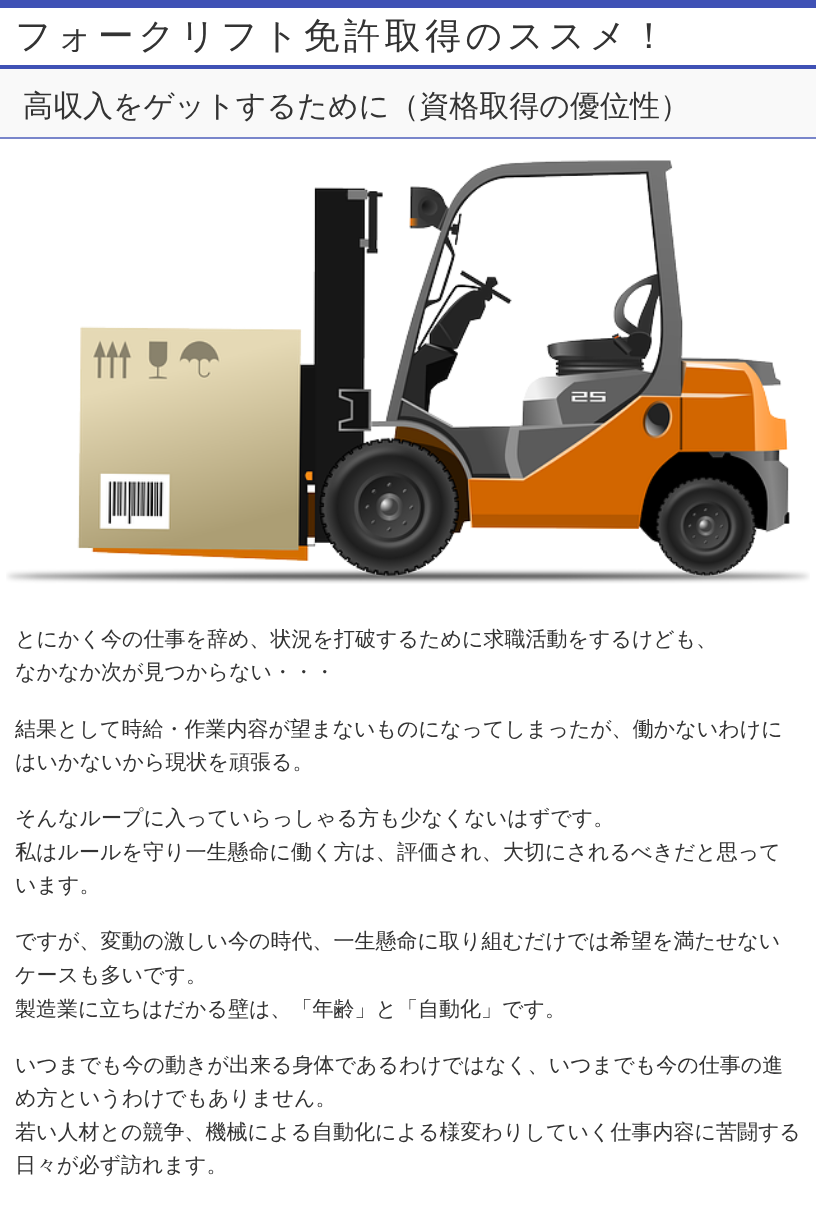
<?xml version="1.0" encoding="UTF-8"?>
<svg xmlns="http://www.w3.org/2000/svg" width="816" height="1209">
    <rect width="100%" height="100%" fill="#FFFFFF"/>
    <rect x="0" y="0" width="816" height="8" fill="#3F51B5"/>
    <rect x="0" y="65" width="816" height="4" fill="#3F51B5"/>
    <text x="15" y="48" font-family="WenQuanYi Zen Hei" font-size="36" font-weight="500" letter-spacing="4.5" fill="#333333">フォークリフト免許取得のススメ！</text>
    <rect x="0" y="69" width="816" height="68" fill="#F9F9F9"/>
    <rect x="0" y="137" width="816" height="2" fill="#7986CB"/>
    <text x="23" y="116" font-family="WenQuanYi Zen Hei" font-size="30" font-weight="500" fill="#333333">高収入をゲットするために（資格取得の優位性）</text>
    <image x="6" y="160" width="804" height="424" href="img_01.png"/>
    <text font-family="WenQuanYi Zen Hei" font-size="21" font-weight="500" fill="#333333">
        <tspan x="15" y="646">とにかく今の仕事を辞め、状況を打破するために求職活動をするけども、</tspan>
        <tspan x="15" y="679">なかなか次が見つからない・・・</tspan>
    </text>
    <text font-family="WenQuanYi Zen Hei" font-size="21" font-weight="500" fill="#333333">
        <tspan x="15" y="736">結果として時給・作業内容が望まないものになってしまったが、働かないわけに</tspan>
        <tspan x="15" y="769">はいかないから現状を頑張る。</tspan>
    </text>
    <text font-family="WenQuanYi Zen Hei" font-size="21" font-weight="500" fill="#333333">
        <tspan x="15" y="825">そんなループに入っていらっしゃる方も少なくないはずです。</tspan>
        <tspan x="15" y="859">私はルールを守り一生懸命に働く方は、評価され、大切にされるべきだと思って</tspan>
        <tspan x="15" y="892">います。</tspan>
    </text>
    <text font-family="WenQuanYi Zen Hei" font-size="21" font-weight="500" fill="#333333">
        <tspan x="15" y="948">ですが、変動の激しい今の時代、一生懸命に取り組むだけでは希望を満たせない</tspan>
        <tspan x="15" y="982">ケースも多いです。</tspan>
        <tspan x="15" y="1016">製造業に立ちはだかる壁は、「年齢」と「自動化」です。</tspan>
    </text>
    <text font-family="WenQuanYi Zen Hei" font-size="21" font-weight="500" fill="#333333">
        <tspan x="15" y="1072">いつまでも今の動きが出来る身体であるわけではなく、いつまでも今の仕事の進</tspan>
        <tspan x="15" y="1105">め方というわけでもありません。</tspan>
        <tspan x="15" y="1139">若い人材との競争、機械による自動化による様変わりしていく仕事内容に苦闘する</tspan>
        <tspan x="15" y="1172">日々が必ず訪れます。</tspan>
    </text>
</svg>
